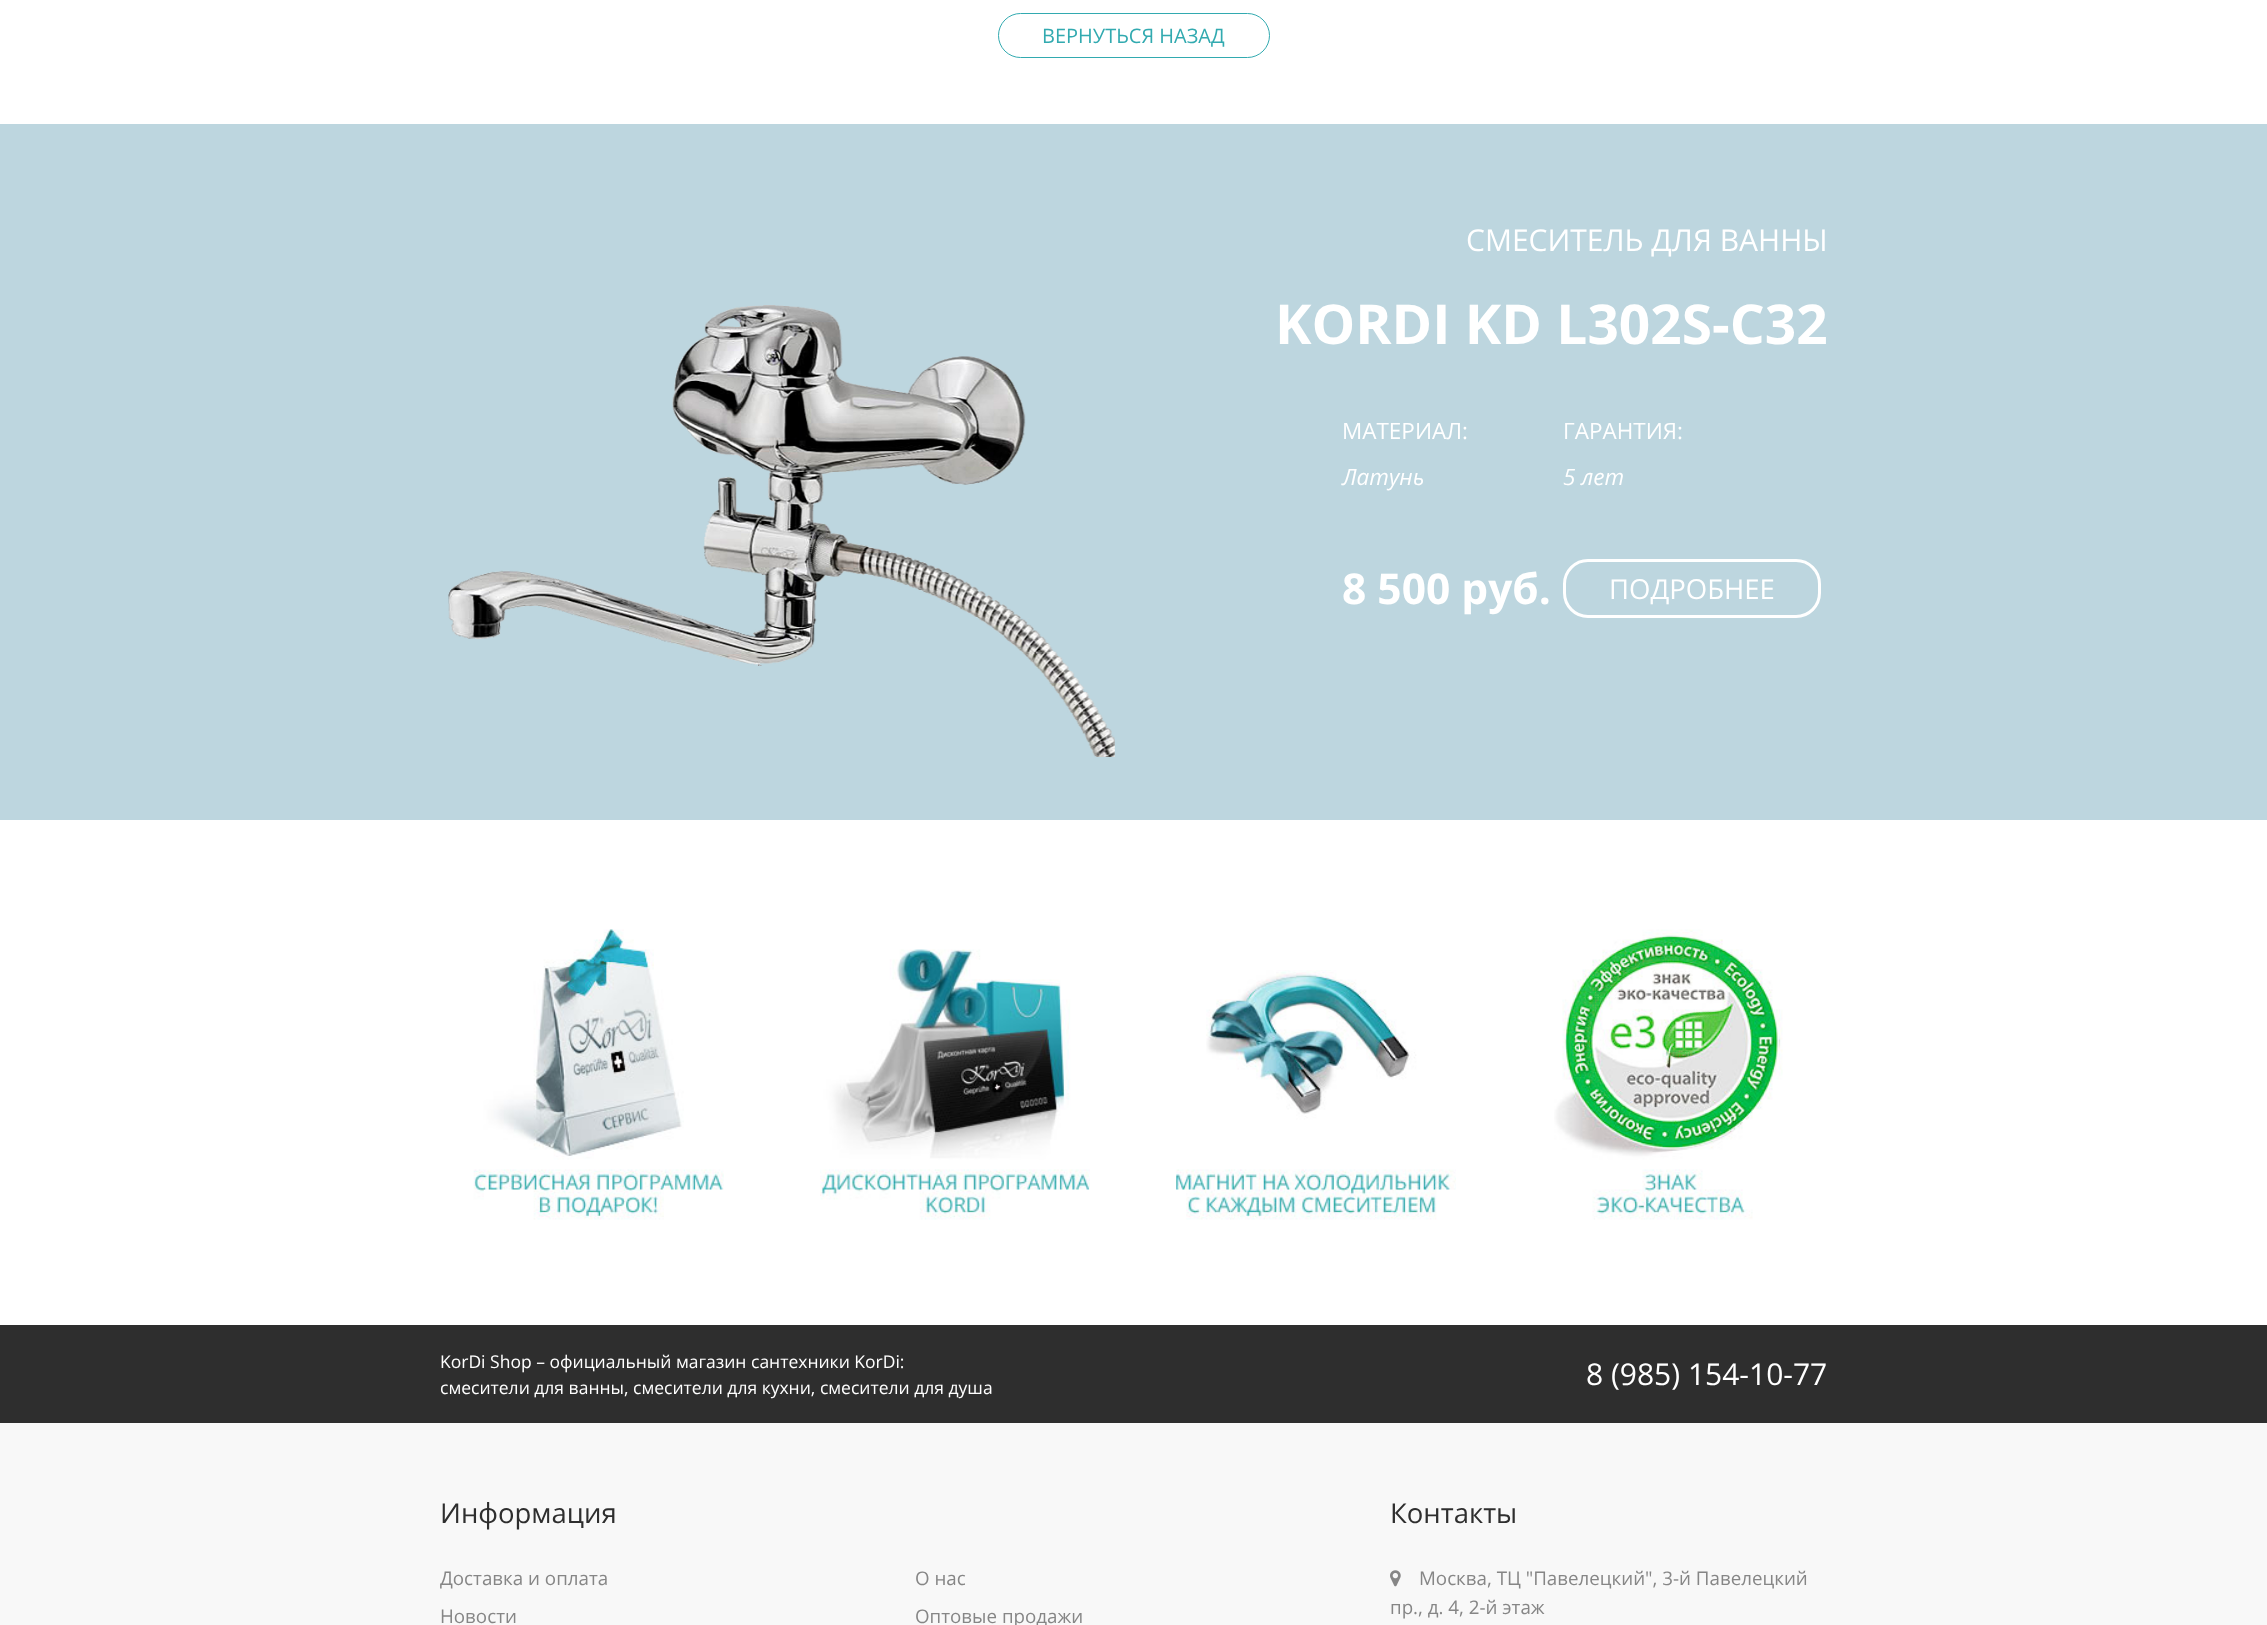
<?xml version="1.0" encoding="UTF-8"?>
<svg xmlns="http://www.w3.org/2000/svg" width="2267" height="1625">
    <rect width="100%" height="100%" fill="#FFFFFF"/>
    <rect x="998.5" y="13.5" width="271" height="44" rx="22" fill="none" stroke="#32AAB0"/>
    <text x="1042" y="43" font-family="Open Sans" font-size="20" fill="#32AAB0">ВЕРНУТЬСЯ НАЗАД</text>
    <rect x="0" y="124" width="2267" height="696" fill="#BDD6DF"/>
    <image x="448" y="305" width="667" height="452" href="img_01.png"/>
    <text x="1466" y="251" font-family="Open Sans" font-size="30" fill="#FFFFFF">СМЕСИТЕЛЬ ДЛЯ ВАННЫ</text>
    <text x="1275" y="344" font-family="Open Sans" font-size="55" font-weight="700" fill="#FFFFFF">KORDI KD L302S-C32</text>
    <text x="1342" y="439" font-family="Open Sans" font-size="22.5" fill="#FFFFFF">МАТЕРИАЛ:</text>
    <text x="1563" y="439" font-family="Open Sans" font-size="22.5" fill="#FFFFFF">ГАРАНТИЯ:</text>
    <text x="1342" y="485" font-family="Open Sans" font-size="22.5" font-style="italic" fill="#FFFFFF">Латунь</text>
    <text x="1563" y="485" font-family="Open Sans" font-size="22.5" font-style="italic" fill="#FFFFFF">5 лет</text>
    <text x="1342" y="604" font-family="Open Sans" font-size="42.5" font-weight="700" fill="#FFFFFF">8 500 руб.</text>
    <rect x="1564.5" y="560.5" width="255" height="56" rx="23.5" fill="none" stroke="#FFFFFF" stroke-width="3"/>
    <text x="1609" y="599" font-family="Open Sans" font-size="27.5" fill="#FFFFFF">ПОДРОБНЕЕ</text>
    <image x="473" y="929" width="251" height="291" href="img_02.png"/>
    <image x="820" y="949" width="270" height="271" href="img_03.png"/>
    <image x="1176" y="970" width="280" height="250" href="img_04.png"/>
    <image x="1554" y="929" width="229" height="291" href="img_05.png"/>
    <rect x="0" y="1325" width="2267" height="98" fill="#2E2E2E"/>
    <text font-family="Open Sans" font-size="17.5" fill="#FFFFFF">
        <tspan x="440" y="1368">KorDi Shop – официальный магазин сантехники KorDi:</tspan>
        <tspan x="440" y="1394">смесители для ванны, смесители для кухни, смесители для душа</tspan>
    </text>
    <text x="1586" y="1385" font-family="Open Sans" font-size="30" fill="#FFFFFF">8 (985) 154-10-77</text>
    <rect x="0" y="1423" width="2267" height="202" fill="#F8F8F8"/>
    <text x="440" y="1523" font-family="Open Sans" font-size="27.5" fill="#2E2E2E">Информация</text>
    <text x="440" y="1585" font-family="Open Sans" font-size="18.75" fill="#868686">Доставка и оплата</text>
    <text x="440" y="1623" font-family="Open Sans" font-size="18.75" fill="#868686">Новости</text>
    <text x="915" y="1585" font-family="Open Sans" font-size="18.75" fill="#868686">О нас</text>
    <text x="915" y="1623" font-family="Open Sans" font-size="18.75" fill="#868686">Оптовые продажи</text>
    <text x="1390" y="1523" font-family="Open Sans" font-size="27.5" fill="#2E2E2E">Контакты</text>
    <image x="1390" y="1570" width="11" height="17" href="img_06.png"/>
    <text x="1419" y="1585" font-family="Open Sans" font-size="18.75" fill="#868686">Москва, ТЦ "Павелецкий", 3-й Павелецкий</text>
    <text x="1390" y="1614" font-family="Open Sans" font-size="18.75" fill="#868686">пр., д. 4, 2-й этаж</text>
</svg>
